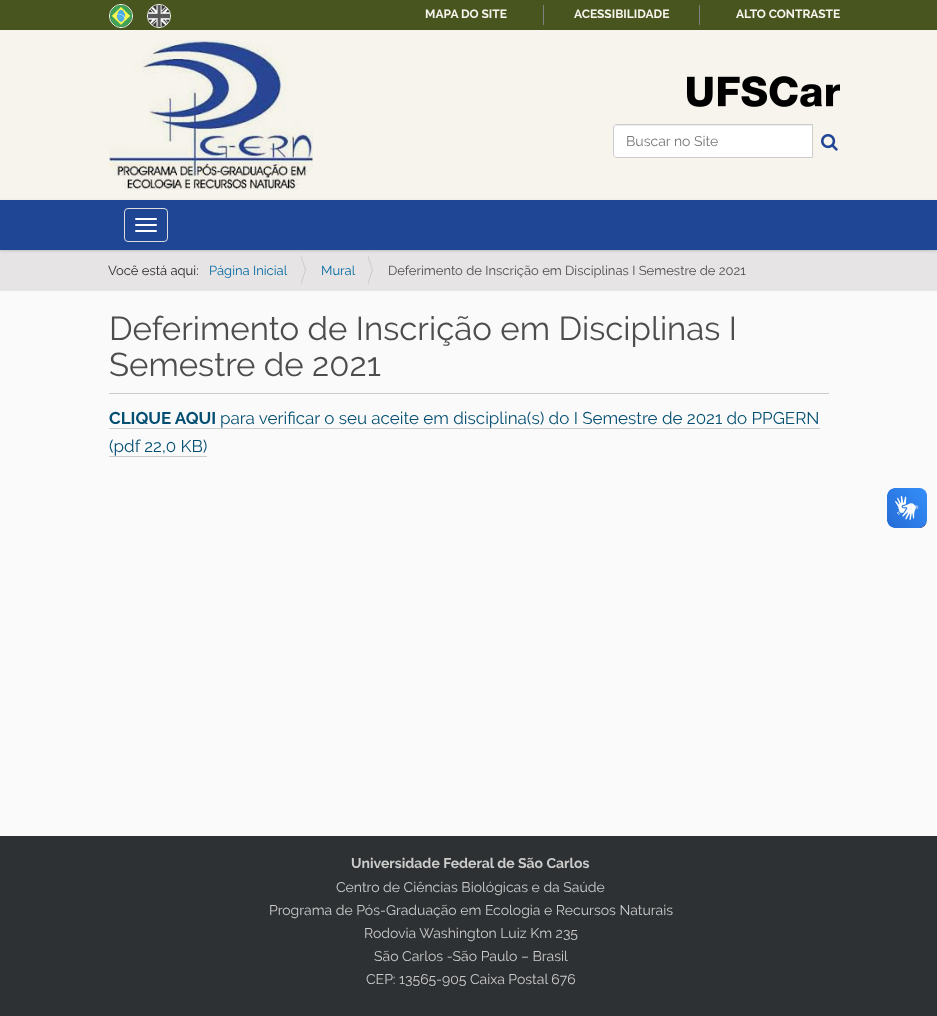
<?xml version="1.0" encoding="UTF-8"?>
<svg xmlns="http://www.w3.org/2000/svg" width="937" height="1016">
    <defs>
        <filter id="blur1" x="-50%" y="-200%" width="200%" height="500%"><feGaussianBlur stdDeviation="1.5"/></filter>
    </defs>
    <rect width="100%" height="100%" fill="#FAFAFA"/>
    <rect x="0" y="30" width="937" height="170" fill="#F6F4EC"/>
    <rect x="0" y="0" width="937" height="30" fill="#48551F"/>
    <text x="425" y="18" font-family="Raleway" font-size="12" font-weight="700" fill="#F6F4EC">MAPA DO SITE</text>
    <rect x="699" y="5" width="1" height="20" fill="#808080"/>
    <rect x="543" y="5" width="1" height="20" fill="#808080"/>
    <text x="574" y="18" font-family="Raleway" font-size="12" font-weight="700" fill="#F6F4EC">ACESSIBILIDADE</text>
    <text x="736" y="18" font-family="Raleway" font-size="12" font-weight="700" fill="#F6F4EC">ALTO CONTRASTE</text>
    <image x="687" y="76" width="153" height="31" href="img_01.png"/>
    <circle cx="121" cy="16" r="11.5" fill="none" stroke="#FFFFFF"/>
    <image x="110" y="5" width="22" height="22" href="img_02.png"/>
    <circle cx="159" cy="16" r="11.5" fill="none" stroke="#FFFFFF"/>
    <image x="148" y="5" width="22" height="22" href="img_03.png"/>
    <image x="109" y="40" width="204" height="150" href="img_04.png"/>
    <path d="M 617 124 H 813 V 158 H 617 C 615 158 613 156 613 154 V 128 C 613 126 615 124 617 124 Z" fill="#FFFFFF"/>
    <path d="M 617 126 H 812 V 125 H 617 C 615 125 614 127 614 129 C 614 127 615 126 617 126 Z" fill="#ECECEC"/>
    <path d="M 617 124.5 H 812.5 V 157.5 H 617 C 615 157.5 613.5 156 613.5 154 V 128 C 613.5 126 615 124.5 617 124.5 Z" fill="none" stroke="#CCCCCC"/>
    <text x="626" y="146" font-family="Raleway" font-size="14" fill="#777777">Buscar no Site</text>
    <image x="821" y="134" width="17" height="17" href="img_05.png"/>
    <rect x="0" y="250" width="937" height="41" fill="#E6E4E4"/>
    <rect x="0" y="201" width="937" height="50" fill="#000000" fill-opacity="0.17" filter="url(#blur1)"/>
    <rect x="0" y="200" width="937" height="50" fill="#1F4595"/>
    <rect x="124.5" y="208.5" width="43" height="33" rx="3.5" fill="none" stroke="#DDDDDD"/>
    <rect x="135" y="218" width="22" height="2" rx="1" fill="#FFFFFF"/>
    <rect x="135" y="224" width="22" height="2" rx="1" fill="#FFFFFF"/>
    <rect x="135" y="230" width="22" height="2" rx="1" fill="#FFFFFF"/>
    <text x="108" y="275" font-family="Raleway" font-size="13" fill="#282828">Você está aqui:</text>
    <text x="209" y="275" font-family="Raleway" font-size="13" fill="#086CA3">Página Inicial</text>
    <path d="M 301 285 V 255 L 306 270 Z" fill="#CCCCCC"/>
    <path d="M 300 285 V 255 L 305 270 Z" fill="#E6E4E4"/>
    <text x="321" y="275" font-family="Raleway" font-size="13" fill="#086CA3">Mural</text>
    <path d="M 368 285 V 255 L 373 270 Z" fill="#CCCCCC"/>
    <path d="M 367 285 V 255 L 372 270 Z" fill="#E6E4E4"/>
    <text x="388" y="275" font-family="Raleway" font-size="13" fill="#4D4D4D">Deferimento de Inscrição em Disciplinas I Semestre de 2021</text>
    <rect x="109" y="393" width="720" height="1" fill="#CCCCCC"/>
    <text font-family="Raleway" font-size="33" fill="#4D4D4D">
        <tspan x="109" y="340">Deferimento de Inscrição em Disciplinas I</tspan>
        <tspan x="109" y="376">Semestre de 2021</tspan>
    </text>
    <text x="109" y="424" font-family="Raleway" font-size="17" font-weight="700" fill="#044F71">CLIQUE AQUI</text>
    <text x="220" y="424" font-family="Raleway" font-size="17" fill="#044F71">para verificar o seu aceite em disciplina(s) do I Semestre de 2021 do PPGERN</text>
    <rect x="109" y="428" width="711" height="1" fill="#CCCCCC"/>
    <text x="109" y="452" font-family="Raleway" font-size="17" fill="#044F71">(pdf 22,0 KB)</text>
    <rect x="109" y="456" width="98" height="1" fill="#CCCCCC"/>
    <image x="887" y="488" width="40" height="40" href="img_06.png"/>
    <image x="887" y="488" width="40" height="40" href="img_07.png"/>
    <rect x="0" y="836" width="937" height="180" fill="#2E3133"/>
    <text x="351" y="868" font-family="Raleway" font-size="14" font-weight="700" fill="#CCCCCC">Universidade Federal de São Carlos</text>
    <text x="336" y="892" font-family="Raleway" font-size="14" fill="#CCCCCC">Centro de Ciências Biológicas e da Saúde</text>
    <text x="269" y="915" font-family="Raleway" font-size="14" fill="#CCCCCC">Programa de Pós-Graduação em Ecologia e Recursos Naturais</text>
    <text x="364" y="938" font-family="Raleway" font-size="14" fill="#CCCCCC">Rodovia Washington Luiz Km 235</text>
    <text x="374" y="961" font-family="Raleway" font-size="14" fill="#CCCCCC">São Carlos -São Paulo – Brasil</text>
    <text x="366" y="984" font-family="Raleway" font-size="14" fill="#CCCCCC">CEP: 13565-905 Caixa Postal 676</text>
</svg>
